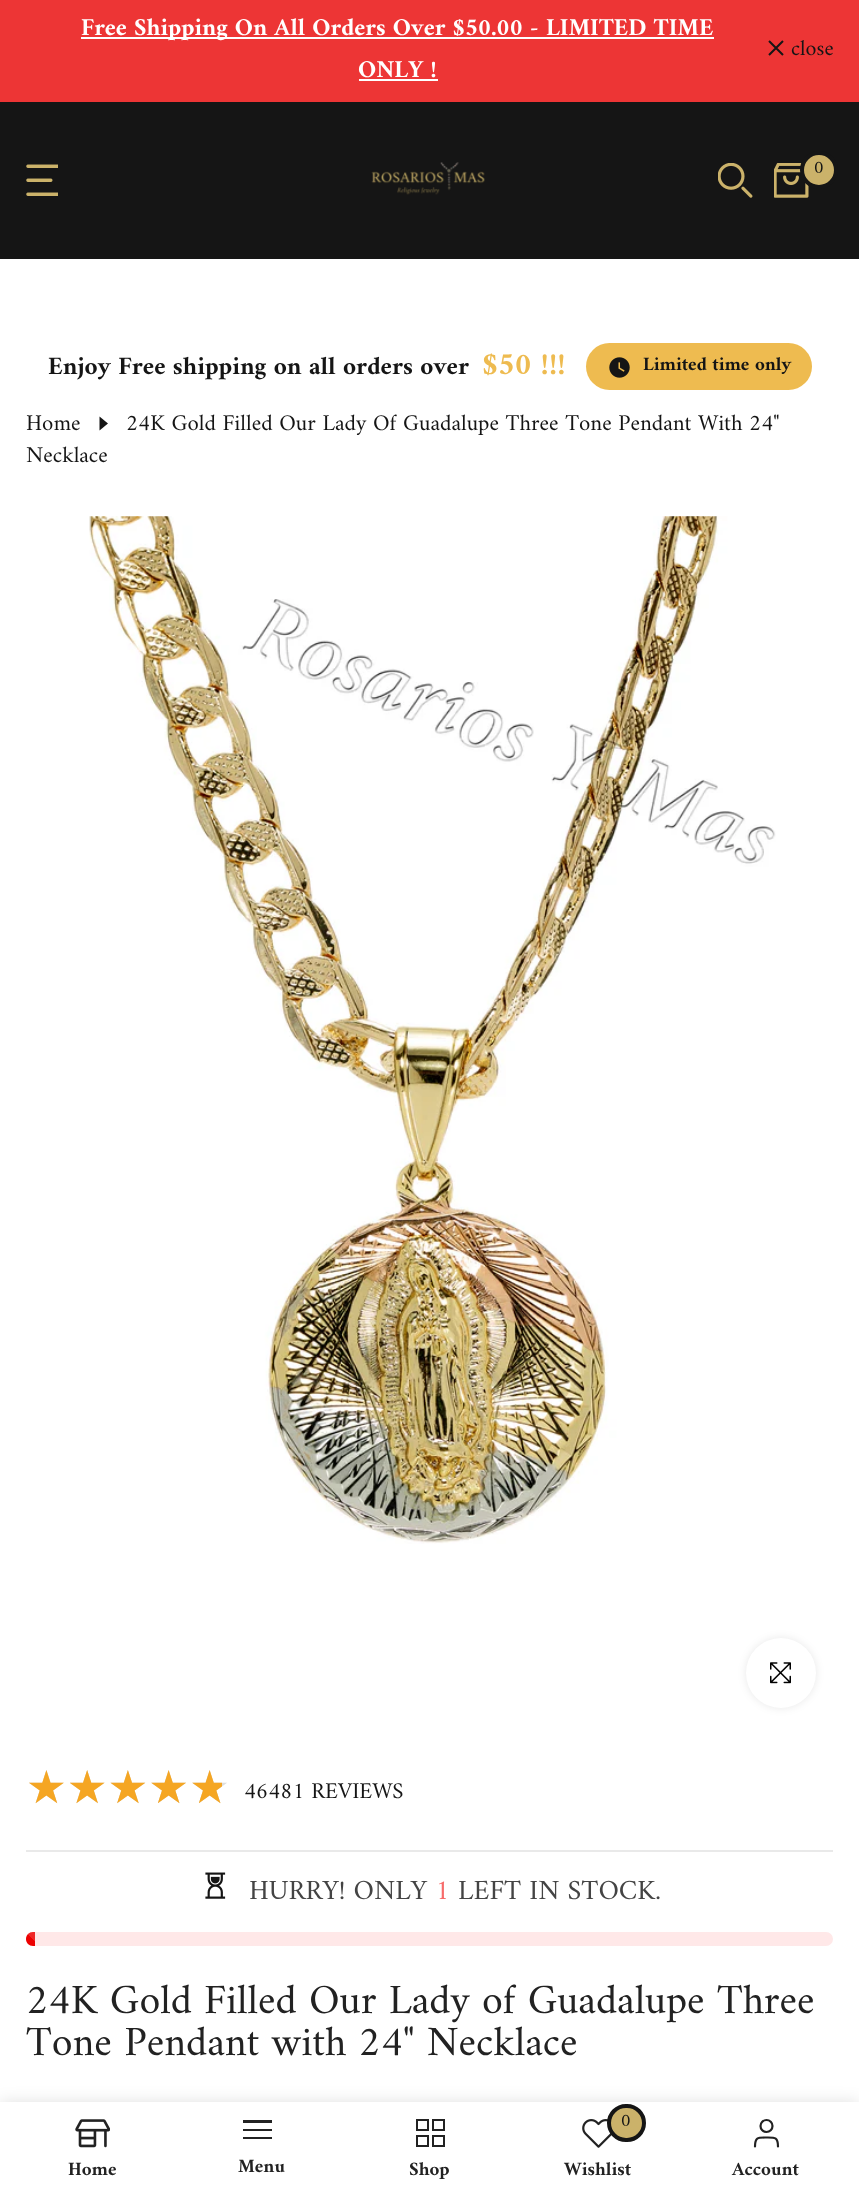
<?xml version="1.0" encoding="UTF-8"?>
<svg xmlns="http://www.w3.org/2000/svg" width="859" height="2197">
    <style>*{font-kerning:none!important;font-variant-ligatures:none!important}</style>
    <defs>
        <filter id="blur1" x="-50%" y="-200%" width="200%" height="500%"><feGaussianBlur stdDeviation="4.5"/></filter>
        <clipPath id="clip1"><rect x="26" y="1769" width="196" height="46"/></clipPath>
        <linearGradient id="g1" gradientUnits="userSpaceOnUse" x1="26" y1="2002" x2="96" y2="1932"><stop offset="0.25" stop-color="#FFFFFF" stop-opacity="0.15"/><stop offset="0.25" stop-color="#FFFFFF" stop-opacity="0"/><stop offset="0.5" stop-color="#FFFFFF" stop-opacity="0"/><stop offset="0.5" stop-color="#FFFFFF" stop-opacity="0.15"/><stop offset="0.75" stop-color="#FFFFFF" stop-opacity="0.15"/><stop offset="0.75" stop-color="#FFFFFF" stop-opacity="0"/><stop offset="1" stop-color="#000000" stop-opacity="0"/></linearGradient>
        <filter id="blur2" x="-50%" y="-200%" width="200%" height="500%"><feGaussianBlur stdDeviation="8"/></filter>
    </defs>
    <rect width="100%" height="100%" fill="#FFFFFF"/>
    <rect x="0" y="0" width="859" height="102" fill="#ED3535"/>
    <rect x="81" y="37" width="633" height="2" fill="#FFFFFF"/>
    <text x="81" y="35" font-family="Amiri" font-size="24.5" font-weight="700" fill="#FFFFFF">Free Shipping On All Orders Over $50.00 - LIMITED TIME</text>
    <text x="358" y="77" font-family="Amiri" font-size="24.5" font-weight="700" fill="#FFFFFF">ONLY !</text>
    <rect x="359" y="79" width="79" height="2" fill="#FFFFFF"/>
    <path d="M 783 41 L 769 55 M 783 55 L 769 41" fill="none" stroke="#151515" stroke-width="2"/>
    <text x="791" y="55" font-family="Amiri" font-size="22" fill="#151515">close</text>
    <rect x="0" y="102" width="859" height="157" fill="#151515"/>
    <image x="26" y="164" width="32" height="32" href="img_01.png"/>
    <image x="371" y="162" width="114" height="33" href="img_02.png"/>
    <image x="718" y="163" width="35" height="35" href="img_03.png"/>
    <image x="774" y="163" width="35" height="35" href="img_04.png"/>
    <circle cx="819" cy="170" r="17" fill="#CBB26A" stroke="#151515" stroke-width="4"/>
    <text x="814" y="173" font-family="Amiri" font-size="18" fill="#151515">0</text>
    <text x="48" y="374" font-family="Amiri" font-size="25.25" font-weight="700" fill="#151515">Enjoy Free shipping on all orders over</text>
    <text x="482" y="374" font-family="Amiri" font-size="31.5" font-weight="700" fill="#EEBB50">$50 !!!</text>
    <rect x="586" y="343" width="226" height="47" rx="23.5" fill="#EEBB50"/>
    <image x="609" y="357" width="21" height="21" href="img_05.png"/>
    <text x="643" y="370" font-family="Amiri" font-size="19" font-weight="700" fill="#151515">Limited time only</text>
    <text x="26" y="430" font-family="Amiri" font-size="22.75" fill="#151515">Home</text>
    <path d="M 99.5 430.5 V 416.5 L 108 423.5 Z" fill="#151515"/>
    <text x="126" y="430" font-family="Amiri" font-size="22.75" fill="#151515">24K Gold Filled Our Lady Of Guadalupe Three Tone Pendant With 24"</text>
    <text x="26" y="462" font-family="Amiri" font-size="22.75" fill="#151515">Necklace</text>
    <image x="89" y="516" width="687" height="1028" href="img_06.png"/>
    <rect x="746" y="1638" width="70" height="70" rx="35" fill="#000000" fill-opacity="0.09" filter="url(#blur1)"/>
    <circle cx="781" cy="1673" r="35" fill="#FFFFFF"/>
    <image x="770" y="1662" width="21" height="22" href="img_07.png"/>
    <text x="26" y="1803" font-family="DejaVu Sans" font-size="45.5" fill="#DDDDDD">★★★★★</text>
    <g clip-path="url(#clip1)">
        <text x="26" y="1803" font-family="DejaVu Sans" font-size="45.5" fill="#F5A623">★★★★★</text>
    </g>
    <text x="244" y="1798" font-family="Amiri" font-size="22.75" fill="#151515">46481 REVIEWS</text>
    <rect x="26" y="1850" width="807" height="2" fill="#E9E9E9"/>
    <image x="205" y="1872" width="21" height="27" href="img_08.png"/>
    <text x="249" y="1899" font-family="Amiri" font-size="28" fill="#444444">HURRY! ONLY</text>
    <text x="435" y="1899" font-family="Amiri" font-size="28" fill="#F76B6A">1</text>
    <text x="458" y="1899" font-family="Amiri" font-size="28" fill="#444444">LEFT IN STOCK.</text>
    <rect x="26" y="1932" width="807" height="14" rx="7" fill="#FFE8E8"/>
    <path d="M 33 1932 H 35 V 1946 H 33 C 29 1946 26 1943 26 1939 C 26 1935 29 1932 33 1932 Z" fill="#EC0101"/>
    <path d="M 33 1932 H 35 V 1946 H 33 C 29 1946 26 1943 26 1939 C 26 1935 29 1932 33 1932 Z" fill="url(#g1)"/>
    <text font-family="Amiri" font-size="42" fill="#222222">
        <tspan x="26" y="2013">24K Gold Filled Our Lady of Guadalupe Three</tspan>
        <tspan x="26" y="2055">Tone Pendant with 24" Necklace</tspan>
    </text>
    <rect x="0" y="2102" width="859" height="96" fill="#000000" fill-opacity="0.12" filter="url(#blur2)"/>
    <rect x="0" y="2102" width="859" height="95" fill="#FFFFFF"/>
    <image x="75" y="2119" width="35" height="29" href="img_09.png"/>
    <text x="68" y="2175" font-family="Amiri" font-size="19" font-weight="700" fill="#222222">Home</text>
    <rect x="243" y="2120" width="29" height="3" fill="#222222"/>
    <rect x="243" y="2129" width="29" height="2" fill="#222222"/>
    <rect x="243" y="2137" width="29" height="2" fill="#222222"/>
    <text x="238" y="2172" font-family="Amiri" font-size="19" font-weight="700" fill="#222222">Menu</text>
    <rect x="417" y="2120" width="11" height="10" fill="none" stroke="#222222" stroke-width="2"/>
    <rect x="433" y="2120" width="11" height="10" fill="none" stroke="#222222" stroke-width="2"/>
    <rect x="417" y="2136" width="11" height="10" fill="none" stroke="#222222" stroke-width="2"/>
    <rect x="433" y="2136" width="11" height="10" fill="none" stroke="#222222" stroke-width="2"/>
    <text x="409" y="2175" font-family="Amiri" font-size="19" font-weight="700" fill="#222222">Shop</text>
    <image x="582" y="2119" width="30" height="29" href="img_10.png"/>
    <rect x="609" y="2106" width="35" height="34" rx="17" fill="#CBB26A" stroke="#151515" stroke-width="4"/>
    <text x="621" y="2126" font-family="Amiri" font-size="18" fill="#151515">0</text>
    <text x="564" y="2175" font-family="Amiri" font-size="19" font-weight="700" fill="#222222">Wishlist</text>
    <circle cx="766.5" cy="2126" r="6" fill="none" stroke="#222222" stroke-width="2.2"/>
    <path d="M 778 2146.5 C 778 2137 775 2137.5 766.5 2137.5 C 758 2137.5 755 2137 755 2146.5" fill="none" stroke="#222222" stroke-width="2.2" stroke-linecap="round" stroke-linejoin="round"/>
    <text x="732" y="2175" font-family="Amiri" font-size="19" font-weight="700" fill="#222222">Account</text>
</svg>
